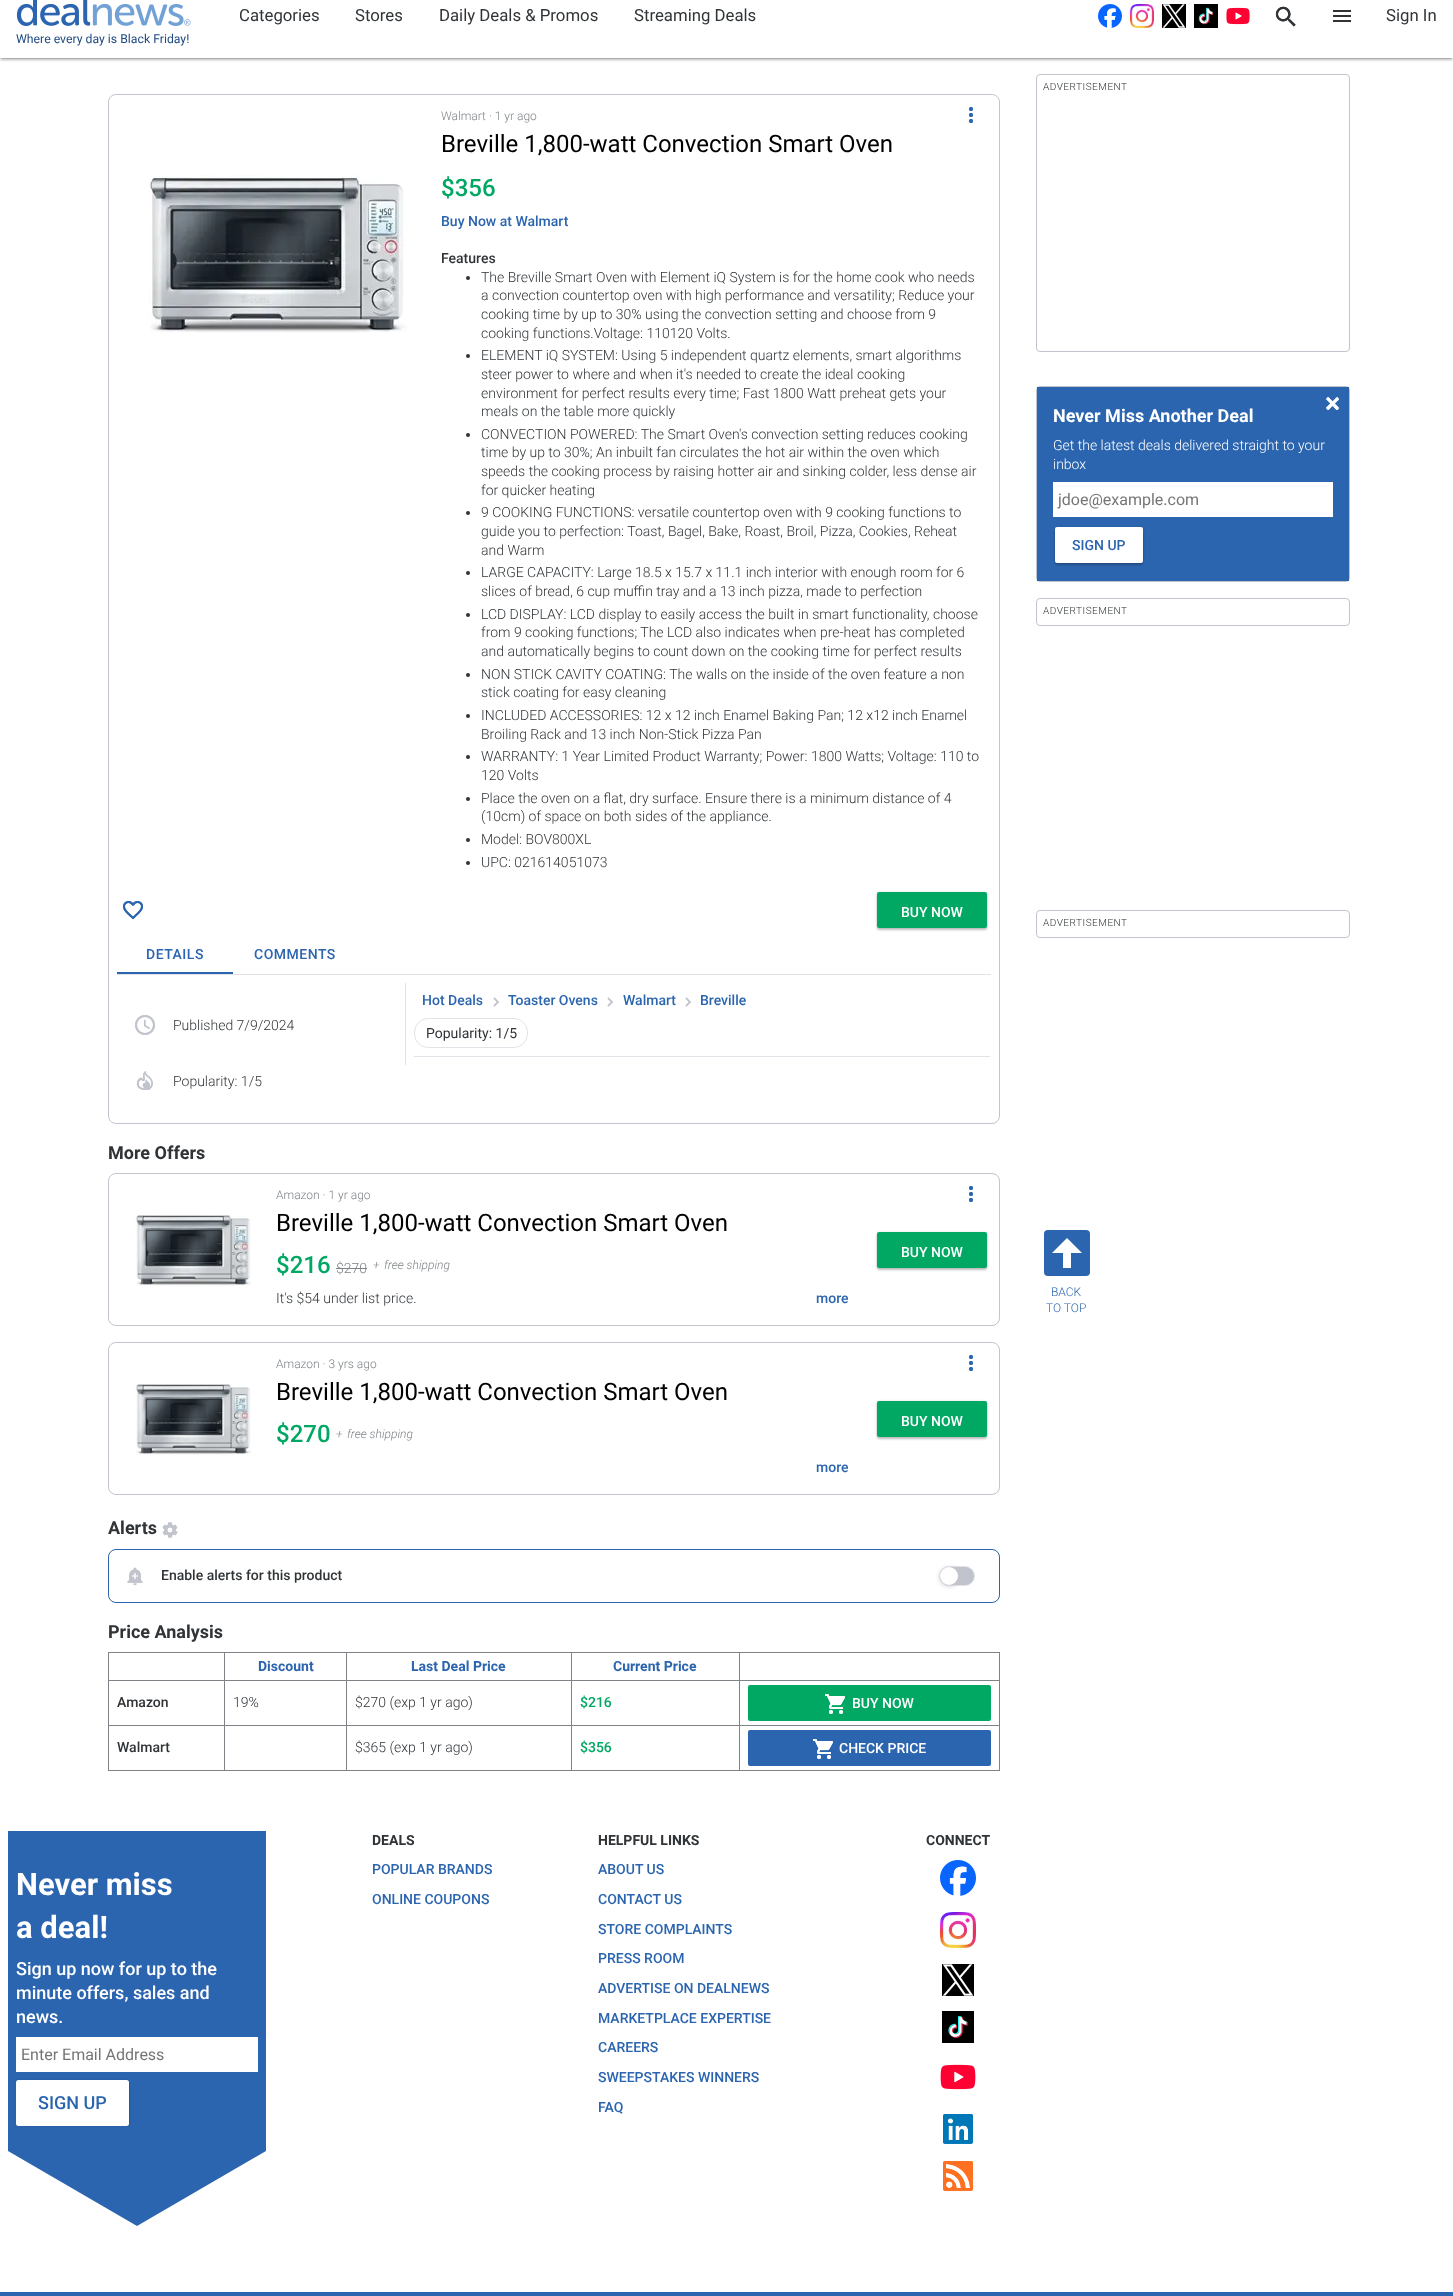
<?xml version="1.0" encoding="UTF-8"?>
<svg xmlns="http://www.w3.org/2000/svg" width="1453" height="2296">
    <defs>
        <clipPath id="clip1"><rect x="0" y="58" width="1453" height="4"/></clipPath>
        <filter id="blur1" x="-50%" y="-200%" width="200%" height="500%"><feGaussianBlur stdDeviation="2.5"/></filter>
        <clipPath id="clip2"><rect x="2" y="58" width="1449" height="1"/></clipPath>
        <filter id="blur2" x="-50%" y="-200%" width="200%" height="500%"><feGaussianBlur stdDeviation="0.5"/></filter>
        <clipPath id="clip3"><rect x="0" y="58" width="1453" height="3"/></clipPath>
        <filter id="blur3" x="-50%" y="-200%" width="200%" height="500%"><feGaussianBlur stdDeviation="1"/></filter>
        <clipPath id="clip4"><rect x="109" y="95" width="890" height="1028" rx="7"/></clipPath>
        <clipPath id="clip5"><rect x="109" y="1174" width="890" height="151" rx="7"/></clipPath>
        <clipPath id="clip6"><rect x="109" y="1343" width="890" height="151" rx="7"/></clipPath>
        <clipPath id="clip7"><rect x="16" y="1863" width="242" height="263"/></clipPath>
    </defs>
    <rect width="100%" height="100%" fill="#FFFFFF"/>
    <g clip-path="url(#clip1)">
        <rect x="0" y="-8" width="1453" height="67" fill="#000000" fill-opacity="0.2" filter="url(#blur1)"/>
    </g>
    <g clip-path="url(#clip2)">
        <rect x="2" y="-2" width="1449" height="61" fill="#000000" fill-opacity="0.12" filter="url(#blur2)"/>
    </g>
    <g clip-path="url(#clip3)">
        <rect x="0" y="-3" width="1453" height="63" fill="#000000" fill-opacity="0.14" filter="url(#blur3)"/>
    </g>
    <text x="239" y="21" font-family="Roboto" font-size="16.75" fill="#303437">Categories</text>
    <text x="355" y="21" font-family="Roboto" font-size="16.75" fill="#303437">Stores</text>
    <text x="439" y="21" font-family="Roboto" font-size="16.75" fill="#303437">Daily Deals &amp; Promos</text>
    <text x="634" y="21" font-family="Roboto" font-size="16.75" fill="#303437">Streaming Deals</text>
    <image x="16" y="0" width="175" height="26" href="img_01.png"/>
    <text x="16" y="43" font-family="Roboto" font-size="12.25" fill="#214B82">Where every day is Black Friday!</text>
    <image x="1098" y="4" width="24" height="24" href="img_02.png"/>
    <image x="1130" y="4" width="24" height="24" href="img_03.png"/>
    <image x="1162" y="4" width="24" height="24" href="img_04.png"/>
    <image x="1194" y="4" width="24" height="24" href="img_05.png"/>
    <image x="1226" y="7" width="24" height="18" href="img_06.png"/>
    <image x="1276" y="6" width="20" height="21" href="img_07.png"/>
    <image x="1275" y="6" width="21" height="21" href="img_08.png"/>
    <image x="1333" y="10" width="18" height="12" href="img_09.png"/>
    <text x="1386" y="21" font-family="Roboto" font-size="16.75" fill="#303437">Sign In</text>
    <rect x="108.5" y="94.5" width="891" height="1029" rx="7.5" fill="none" stroke="#C1C4CC"/>
    <g clip-path="url(#clip4)">
        <rect x="109" y="95" width="890" height="789" rx="8" fill="#FFFFFF"/>
    </g>
    <image x="969" y="107" width="4" height="16" href="img_10.png"/>
    <image x="969" y="107" width="4" height="16" href="img_11.png"/>
    <image x="149" y="175" width="258" height="158" href="img_12.png"/>
    <text x="441" y="120" font-family="Roboto" font-size="12" font-weight="300" fill="#7F8387">Walmart · 1 yr ago</text>
    <text x="441" y="152" font-family="Roboto" font-size="24" fill="#000000">Breville 1,800-watt Convection Smart Oven</text>
    <text x="441" y="196" font-family="Roboto" font-size="24" font-weight="500" fill="#00A863">$356</text>
    <text x="441" y="226" font-family="Roboto" font-size="14" font-weight="500" fill="#2C65AF">Buy Now at Walmart</text>
    <text x="441" y="263" font-family="Roboto" font-size="14" font-weight="500" fill="#303437">Features</text>
    <circle cx="468" cy="278" r="2" fill="#303437"/>
    <text font-family="Roboto" font-size="14" font-weight="300" fill="#303437">
        <tspan x="481" y="282">The Breville Smart Oven with Element iQ System is for the home cook who needs</tspan>
        <tspan x="481" y="300">a convection countertop oven with high performance and versatility; Reduce your</tspan>
        <tspan x="481" y="319">cooking time by up to 30% using the convection setting and choose from 9</tspan>
        <tspan x="481" y="338">cooking functions.Voltage: 110120 Volts.</tspan>
    </text>
    <circle cx="468" cy="356" r="2" fill="#303437"/>
    <text font-family="Roboto" font-size="14" font-weight="300" fill="#303437">
        <tspan x="481" y="360">ELEMENT iQ SYSTEM: Using 5 independent quartz elements, smart algorithms</tspan>
        <tspan x="481" y="379">steer power to where and when it's needed to create the ideal cooking</tspan>
        <tspan x="481" y="398">environment for perfect results every time; Fast 1800 Watt preheat gets your</tspan>
        <tspan x="481" y="416">meals on the table more quickly</tspan>
    </text>
    <circle cx="468" cy="435" r="2" fill="#303437"/>
    <text font-family="Roboto" font-size="14" font-weight="300" fill="#303437">
        <tspan x="481" y="439">CONVECTION POWERED: The Smart Oven's convection setting reduces cooking</tspan>
        <tspan x="481" y="457">time by up to 30%; An inbuilt fan circulates the hot air within the oven which</tspan>
        <tspan x="481" y="476">speeds the cooking process by raising hotter air and sinking colder, less dense air</tspan>
        <tspan x="481" y="495">for quicker heating</tspan>
    </text>
    <circle cx="468" cy="513" r="2" fill="#303437"/>
    <text font-family="Roboto" font-size="14" font-weight="300" fill="#303437">
        <tspan x="481" y="517">9 COOKING FUNCTIONS: versatile countertop oven with 9 cooking functions to</tspan>
        <tspan x="481" y="536">guide you to perfection: Toast, Bagel, Bake, Roast, Broil, Pizza, Cookies, Reheat</tspan>
        <tspan x="481" y="555">and Warm</tspan>
    </text>
    <circle cx="468" cy="573" r="2" fill="#303437"/>
    <text font-family="Roboto" font-size="14" font-weight="300" fill="#303437">
        <tspan x="481" y="577">LARGE CAPACITY: Large 18.5 x 15.7 x 11.1 inch interior with enough room for 6</tspan>
        <tspan x="481" y="596">slices of bread, 6 cup muffin tray and a 13 inch pizza, made to perfection</tspan>
    </text>
    <circle cx="468" cy="615" r="2" fill="#303437"/>
    <text font-family="Roboto" font-size="14" font-weight="300" fill="#303437">
        <tspan x="481" y="619">LCD DISPLAY: LCD display to easily access the built in smart functionality, choose</tspan>
        <tspan x="481" y="637">from 9 cooking functions; The LCD also indicates when pre-heat has completed</tspan>
        <tspan x="481" y="656">and automatically begins to count down on the cooking time for perfect results</tspan>
    </text>
    <circle cx="468" cy="675" r="2" fill="#303437"/>
    <text font-family="Roboto" font-size="14" font-weight="300" fill="#303437">
        <tspan x="481" y="679">NON STICK CAVITY COATING: The walls on the inside of the oven feature a non</tspan>
        <tspan x="481" y="697">stick coating for easy cleaning</tspan>
    </text>
    <circle cx="468" cy="716" r="2" fill="#303437"/>
    <text font-family="Roboto" font-size="14" font-weight="300" fill="#303437">
        <tspan x="481" y="720">INCLUDED ACCESSORIES: 12 x 12 inch Enamel Baking Pan; 12 x12 inch Enamel</tspan>
        <tspan x="481" y="739">Broiling Rack and 13 inch Non-Stick Pizza Pan</tspan>
    </text>
    <circle cx="468" cy="757" r="2" fill="#303437"/>
    <text font-family="Roboto" font-size="14" font-weight="300" fill="#303437">
        <tspan x="481" y="761">WARRANTY: 1 Year Limited Product Warranty; Power: 1800 Watts; Voltage: 110 to</tspan>
        <tspan x="481" y="780">120 Volts</tspan>
    </text>
    <circle cx="468" cy="799" r="2" fill="#303437"/>
    <text font-family="Roboto" font-size="14" font-weight="300" fill="#303437">
        <tspan x="481" y="803">Place the oven on a flat, dry surface. Ensure there is a minimum distance of 4</tspan>
        <tspan x="481" y="821">(10cm) of space on both sides of the appliance.</tspan>
    </text>
    <circle cx="468" cy="840" r="2" fill="#303437"/>
    <text x="481" y="844" font-family="Roboto" font-size="14" font-weight="300" fill="#303437">Model: BOV800XL</text>
    <circle cx="468" cy="863" r="2" fill="#303437"/>
    <text x="481" y="867" font-family="Roboto" font-size="14" font-weight="300" fill="#303437">UPC: 021614051073</text>
    <image x="123" y="901" width="20" height="19" href="img_13.png"/>
    <image x="123" y="901" width="20" height="19" href="img_14.png"/>
    <rect x="877" y="894" width="110" height="36" rx="2" fill="#000000" fill-opacity="0.24" filter="url(#blur3)"/>
    <rect x="877" y="892" width="110" height="36" rx="2" fill="#000000" fill-opacity="0.12" filter="url(#blur3)"/>
    <rect x="877" y="892" width="110" height="36" rx="2" fill="#00A863"/>
    <text x="901" y="917" font-family="Roboto" font-size="14" font-weight="500" fill="#FFFFFF">BUY NOW</text>
    <rect x="117" y="974" width="874" height="1" fill="#E2E3E8"/>
    <rect x="117" y="972" width="116" height="2" fill="#2C65AF"/>
    <text x="146" y="959" font-family="Roboto" font-size="14" font-weight="500" letter-spacing="0.5" fill="#2C65AF">DETAILS</text>
    <text x="254" y="959" font-family="Roboto" font-size="14" font-weight="500" letter-spacing="0.5" fill="#2C65AF">COMMENTS</text>
    <image x="135" y="1015" width="20" height="20" href="img_15.png"/>
    <image x="135" y="1015" width="20" height="20" href="img_16.png"/>
    <text x="173" y="1030" font-family="Roboto" font-size="14" font-weight="300" fill="#303437">Published 7/9/2024</text>
    <image x="136" y="1071" width="17" height="19" href="img_17.png"/>
    <image x="136" y="1071" width="17" height="19" href="img_18.png"/>
    <text x="173" y="1086" font-family="Roboto" font-size="14" font-weight="300" fill="#303437">Popularity: 1/5</text>
    <rect x="405" y="983" width="1" height="82" fill="#E2E3E8"/>
    <text x="422" y="1005" font-family="Roboto" font-size="14" font-weight="500" fill="#2C65AF">Hot Deals</text>
    <image x="493" y="997" width="6" height="10" href="img_19.png"/>
    <image x="493" y="997" width="6" height="10" href="img_20.png"/>
    <text x="508" y="1005" font-family="Roboto" font-size="14" font-weight="500" fill="#2C65AF">Toaster Ovens</text>
    <image x="607" y="997" width="6" height="10" href="img_19.png"/>
    <image x="607" y="997" width="6" height="10" href="img_20.png"/>
    <text x="623" y="1005" font-family="Roboto" font-size="14" font-weight="500" fill="#2C65AF">Walmart</text>
    <image x="685" y="997" width="6" height="10" href="img_19.png"/>
    <image x="685" y="997" width="6" height="10" href="img_20.png"/>
    <text x="700" y="1005" font-family="Roboto" font-size="14" font-weight="500" fill="#2C65AF">Breville</text>
    <rect x="414" y="1056" width="576" height="1" fill="#E2E3E8"/>
    <rect x="414.5" y="1018.5" width="113" height="29" rx="13.5" fill="none" stroke="#E2E3E8"/>
    <text x="426" y="1038" font-family="Roboto" font-size="14" fill="#303437">Popularity: 1/5</text>
    <text x="108" y="1159" font-family="Roboto" font-size="18" font-weight="700" fill="#303437">More Offers</text>
    <rect x="108.5" y="1173.5" width="891" height="152" rx="7.5" fill="none" stroke="#C1C4CC"/>
    <g clip-path="url(#clip5)">
        <rect x="109" y="1174" width="756" height="151" rx="8" fill="#FFFFFF"/>
    </g>
    <image x="135" y="1215" width="117" height="71" href="img_21.png"/>
    <text x="276" y="1199" font-family="Roboto" font-size="12" font-weight="300" fill="#7F8387">Amazon · 1 yr ago</text>
    <text x="276" y="1231" font-family="Roboto" font-size="24" fill="#000000">Breville 1,800-watt Convection Smart Oven</text>
    <text x="276" y="1273" font-family="Roboto" font-size="24" font-weight="500" fill="#00A863">$216</text>
    <text x="336" y="1273" font-family="Roboto" font-size="14" font-weight="300" fill="#7F8387">$270</text>
    <rect x="336" y="1268" width="31" height="1" fill="#7F8387"/>
    <text x="373" y="1269" font-family="Roboto" font-size="12" font-weight="300" font-style="italic" fill="#7F8387">+</text>
    <text x="384" y="1269" font-family="Roboto" font-size="12" font-weight="300" font-style="italic" fill="#7F8387">free shipping</text>
    <text x="276" y="1303" font-family="Roboto" font-size="14" font-weight="300" fill="#303437">It's $54 under list price.</text>
    <text x="816" y="1303" font-family="Roboto" font-size="14" font-weight="500" fill="#2C65AF">more</text>
    <rect x="877" y="1234" width="110" height="36" rx="2" fill="#000000" fill-opacity="0.24" filter="url(#blur3)"/>
    <rect x="877" y="1232" width="110" height="36" rx="2" fill="#000000" fill-opacity="0.12" filter="url(#blur3)"/>
    <rect x="877" y="1232" width="110" height="36" rx="2" fill="#00A863"/>
    <text x="901" y="1257" font-family="Roboto" font-size="14" font-weight="500" fill="#FFFFFF">BUY NOW</text>
    <image x="969" y="1186" width="4" height="16" href="img_10.png"/>
    <image x="969" y="1186" width="4" height="16" href="img_11.png"/>
    <rect x="108.5" y="1342.5" width="891" height="152" rx="7.5" fill="none" stroke="#C1C4CC"/>
    <g clip-path="url(#clip6)">
        <rect x="109" y="1343" width="756" height="151" rx="8" fill="#FFFFFF"/>
    </g>
    <image x="135" y="1384" width="117" height="71" href="img_21.png"/>
    <text x="276" y="1368" font-family="Roboto" font-size="12" font-weight="300" fill="#7F8387">Amazon · 3 yrs ago</text>
    <text x="276" y="1400" font-family="Roboto" font-size="24" fill="#000000">Breville 1,800-watt Convection Smart Oven</text>
    <text x="276" y="1442" font-family="Roboto" font-size="24" font-weight="500" fill="#00A863">$270</text>
    <text x="336" y="1438" font-family="Roboto" font-size="12" font-weight="300" font-style="italic" fill="#7F8387">+</text>
    <text x="347" y="1438" font-family="Roboto" font-size="12" font-weight="300" font-style="italic" fill="#7F8387">free shipping</text>
    <text x="816" y="1472" font-family="Roboto" font-size="14" font-weight="500" fill="#2C65AF">more</text>
    <rect x="877" y="1403" width="110" height="36" rx="2" fill="#000000" fill-opacity="0.24" filter="url(#blur3)"/>
    <rect x="877" y="1401" width="110" height="36" rx="2" fill="#000000" fill-opacity="0.12" filter="url(#blur3)"/>
    <rect x="877" y="1401" width="110" height="36" rx="2" fill="#00A863"/>
    <text x="901" y="1426" font-family="Roboto" font-size="14" font-weight="500" fill="#FFFFFF">BUY NOW</text>
    <image x="969" y="1355" width="4" height="16" href="img_10.png"/>
    <image x="969" y="1355" width="4" height="16" href="img_11.png"/>
    <text x="108" y="1534" font-family="Roboto" font-size="18" font-weight="700" fill="#303437">Alerts</text>
    <image x="162" y="1522" width="16" height="16" href="img_22.png"/>
    <image x="162" y="1522" width="16" height="16" href="img_23.png"/>
    <rect x="108.5" y="1549.5" width="891" height="53" rx="7.5" fill="none" stroke="#2C65AF"/>
    <image x="127" y="1567" width="16" height="19" href="img_24.png"/>
    <image x="127" y="1567" width="16" height="18" href="img_25.png"/>
    <text x="161" y="1580" font-family="Roboto" font-size="14" font-weight="500" fill="#303437">Enable alerts for this product</text>
    <rect x="939.5" y="1566.5" width="35" height="19" rx="9.5" fill="#C1C4CC" stroke="#E2E3E8"/>
    <rect x="940" y="1568" width="18" height="18" rx="9" fill="#C1C4CC" filter="url(#blur1)"/>
    <circle cx="949" cy="1576" r="9" fill="#FFFFFF"/>
    <text x="108" y="1638" font-family="Roboto" font-size="18" font-weight="700" fill="#303437">Price Analysis</text>
    <rect x="739" y="1652" width="261" height="1" fill="#7F8387"/>
    <rect x="739" y="1680" width="261" height="1" fill="#7F8387"/>
    <rect x="739" y="1725" width="261" height="1" fill="#7F8387"/>
    <rect x="999" y="1725" width="1" height="46" fill="#7F8387"/>
    <rect x="739" y="1770" width="261" height="1" fill="#7F8387"/>
    <rect x="739" y="1725" width="1" height="46" fill="#7F8387"/>
    <rect x="571" y="1725" width="169" height="1" fill="#7F8387"/>
    <rect x="739" y="1680" width="1" height="46" fill="#7F8387"/>
    <rect x="571" y="1680" width="169" height="1" fill="#7F8387"/>
    <rect x="739" y="1652" width="1" height="29" fill="#7F8387"/>
    <rect x="571" y="1652" width="169" height="1" fill="#7F8387"/>
    <rect x="571" y="1770" width="169" height="1" fill="#7F8387"/>
    <rect x="571" y="1725" width="1" height="46" fill="#7F8387"/>
    <rect x="346" y="1725" width="226" height="1" fill="#7F8387"/>
    <rect x="571" y="1680" width="1" height="46" fill="#7F8387"/>
    <rect x="346" y="1680" width="226" height="1" fill="#7F8387"/>
    <rect x="571" y="1652" width="1" height="29" fill="#7F8387"/>
    <rect x="346" y="1652" width="226" height="1" fill="#7F8387"/>
    <rect x="346" y="1770" width="226" height="1" fill="#7F8387"/>
    <rect x="346" y="1725" width="1" height="46" fill="#7F8387"/>
    <rect x="224" y="1725" width="123" height="1" fill="#7F8387"/>
    <rect x="346" y="1680" width="1" height="46" fill="#7F8387"/>
    <rect x="224" y="1680" width="123" height="1" fill="#7F8387"/>
    <rect x="346" y="1652" width="1" height="29" fill="#7F8387"/>
    <rect x="224" y="1652" width="123" height="1" fill="#7F8387"/>
    <rect x="224" y="1770" width="123" height="1" fill="#7F8387"/>
    <rect x="224" y="1725" width="1" height="46" fill="#7F8387"/>
    <rect x="108" y="1725" width="117" height="1" fill="#7F8387"/>
    <rect x="224" y="1680" width="1" height="46" fill="#7F8387"/>
    <rect x="108" y="1680" width="117" height="1" fill="#7F8387"/>
    <rect x="224" y="1652" width="1" height="29" fill="#7F8387"/>
    <rect x="108" y="1652" width="117" height="1" fill="#7F8387"/>
    <rect x="108" y="1770" width="117" height="1" fill="#7F8387"/>
    <rect x="108" y="1725" width="1" height="46" fill="#7F8387"/>
    <rect x="108" y="1680" width="1" height="46" fill="#7F8387"/>
    <rect x="108" y="1652" width="1" height="29" fill="#7F8387"/>
    <text x="258" y="1671" font-family="Roboto" font-size="14" font-weight="700" fill="#2C65AF">Discount</text>
    <text x="411" y="1671" font-family="Roboto" font-size="14" font-weight="700" fill="#2C65AF">Last Deal Price</text>
    <text x="613" y="1671" font-family="Roboto" font-size="14" font-weight="700" fill="#2C65AF">Current Price</text>
    <rect x="999" y="1680" width="1" height="46" fill="#7F8387"/>
    <rect x="999" y="1652" width="1" height="29" fill="#7F8387"/>
    <text x="117" y="1707" font-family="Roboto" font-size="14" font-weight="500" fill="#303437">Amazon</text>
    <text x="233" y="1707" font-family="Roboto" font-size="14" font-weight="300" fill="#303437">19%</text>
    <text x="355" y="1707" font-family="Roboto" font-size="14" font-weight="300" fill="#303437">$270 (exp 1 yr ago)</text>
    <text x="580" y="1707" font-family="Roboto" font-size="14" font-weight="500" fill="#00A863">$216</text>
    <rect x="748" y="1685" width="243" height="36" rx="2" fill="#00A863"/>
    <image x="825" y="1694" width="20" height="20" href="img_26.png"/>
    <image x="827" y="1694" width="18" height="20" href="img_27.png"/>
    <text x="852" y="1708" font-family="Roboto" font-size="14" font-weight="500" fill="#FFFFFF">BUY NOW</text>
    <text x="117" y="1752" font-family="Roboto" font-size="14" font-weight="500" fill="#303437">Walmart</text>
    <text x="355" y="1752" font-family="Roboto" font-size="14" font-weight="300" fill="#303437">$365 (exp 1 yr ago)</text>
    <text x="580" y="1752" font-family="Roboto" font-size="14" font-weight="500" fill="#00A863">$356</text>
    <rect x="748" y="1730" width="243" height="36" rx="2" fill="#2C65AF"/>
    <image x="813" y="1739" width="20" height="20" href="img_28.png"/>
    <image x="815" y="1739" width="18" height="20" href="img_29.png"/>
    <text x="839" y="1753" font-family="Roboto" font-size="14" font-weight="500" fill="#FFFFFF">CHECK PRICE</text>
    <rect x="1036.5" y="74.5" width="313" height="277" rx="3.5" fill="none" stroke="#C1C4CC"/>
    <text x="1043" y="90" font-family="Roboto" font-size="10" font-weight="300" letter-spacing="0.5" fill="#303437">ADVERTISEMENT</text>
    <rect x="1036.5" y="386.5" width="313" height="195" rx="3.5" fill="none" stroke="#C1C4CC"/>
    <rect x="1037" y="387" width="312" height="194" fill="#2C65AF"/>
    <image x="1326" y="397" width="13" height="13" href="img_30.png"/>
    <text x="1053" y="422" font-family="Roboto" font-size="18" font-weight="700" fill="#FFFFFF">Never Miss Another Deal</text>
    <text font-family="Roboto" font-size="14" font-weight="300" fill="#FFFFFF">
        <tspan x="1053" y="450">Get the latest deals delivered straight to your</tspan>
        <tspan x="1053" y="469">inbox</tspan>
    </text>
    <rect x="1053" y="482" width="280" height="35" fill="#FFFFFF"/>
    <text x="1058" y="505" font-family="Roboto" font-size="16" fill="#757575">jdoe@example.com</text>
    <rect x="1055" y="529" width="88" height="36" rx="2" fill="#000000" fill-opacity="0.24" filter="url(#blur3)"/>
    <rect x="1055" y="527" width="88" height="36" rx="2" fill="#000000" fill-opacity="0.12" filter="url(#blur3)"/>
    <rect x="1055" y="527" width="88" height="36" rx="2" fill="#FFFFFF"/>
    <text x="1072" y="550" font-family="Roboto" font-size="14" font-weight="500" fill="#2C65AF">SIGN UP</text>
    <rect x="1036.5" y="598.5" width="313" height="27" rx="3.5" fill="none" stroke="#C1C4CC"/>
    <text x="1043" y="614" font-family="Roboto" font-size="10" font-weight="300" letter-spacing="0.5" fill="#303437">ADVERTISEMENT</text>
    <rect x="1036.5" y="910.5" width="313" height="27" rx="3.5" fill="none" stroke="#C1C4CC"/>
    <text x="1043" y="926" font-family="Roboto" font-size="10" font-weight="300" letter-spacing="0.5" fill="#303437">ADVERTISEMENT</text>
    <rect x="1044" y="1230" width="46" height="46" rx="4" fill="#2C65AF"/>
    <path d="M 1082 1253 H 1052 L 1067 1238 Z" fill="#FFFFFF"/>
    <rect x="1063" y="1253" width="8" height="15" fill="#FFFFFF"/>
    <text x="1051" y="1296" font-family="Roboto" font-size="12" font-weight="300" fill="#2C65AF">BACK</text>
    <text x="1046" y="1312" font-family="Roboto" font-size="12" font-weight="300" fill="#2C65AF">TO TOP</text>
    <text x="372" y="1845" font-family="Roboto" font-size="14" font-weight="700" fill="#303437">DEALS</text>
    <text x="372" y="1874" font-family="Roboto" font-size="14" font-weight="500" fill="#2C65AF">POPULAR BRANDS</text>
    <text x="372" y="1904" font-family="Roboto" font-size="14" font-weight="500" fill="#2C65AF">ONLINE COUPONS</text>
    <text x="598" y="1845" font-family="Roboto" font-size="14" font-weight="700" fill="#303437">HELPFUL LINKS</text>
    <text x="598" y="1874" font-family="Roboto" font-size="14" font-weight="500" fill="#2C65AF">ABOUT US</text>
    <text x="598" y="1904" font-family="Roboto" font-size="14" font-weight="500" fill="#2C65AF">CONTACT US</text>
    <text x="598" y="1934" font-family="Roboto" font-size="14" font-weight="500" fill="#2C65AF">STORE COMPLAINTS</text>
    <text x="598" y="1963" font-family="Roboto" font-size="14" font-weight="500" fill="#2C65AF">PRESS ROOM</text>
    <text x="598" y="1993" font-family="Roboto" font-size="14" font-weight="500" fill="#2C65AF">ADVERTISE ON DEALNEWS</text>
    <text x="598" y="2023" font-family="Roboto" font-size="14" font-weight="500" fill="#2C65AF">MARKETPLACE EXPERTISE</text>
    <text x="598" y="2052" font-family="Roboto" font-size="14" font-weight="500" fill="#2C65AF">CAREERS</text>
    <text x="598" y="2082" font-family="Roboto" font-size="14" font-weight="500" fill="#2C65AF">SWEEPSTAKES WINNERS</text>
    <text x="598" y="2112" font-family="Roboto" font-size="14" font-weight="500" fill="#2C65AF">FAQ</text>
    <text x="926" y="1845" font-family="Roboto" font-size="14" font-weight="700" fill="#303437">CONNECT</text>
    <image x="940" y="1860" width="36" height="36" href="img_31.png"/>
    <image x="940" y="1912" width="36" height="36" href="img_32.png"/>
    <image x="942" y="1964" width="32" height="32" href="img_33.png"/>
    <image x="942" y="2011" width="32" height="32" href="img_34.png"/>
    <image x="940" y="2064" width="36" height="26" href="img_35.png"/>
    <image x="943" y="2114" width="30" height="30" href="img_36.png"/>
    <image x="943" y="2114" width="30" height="30" href="img_37.png"/>
    <image x="943" y="2161" width="30" height="30" href="img_38.png"/>
    <image x="943" y="2161" width="30" height="30" href="img_39.png"/>
    <rect x="8" y="1831" width="258" height="320" fill="#2C65AF"/>
    <text font-family="Roboto" font-size="31" font-weight="700" fill="#FFFFFF">
        <tspan x="16" y="1895">Never miss</tspan>
        <tspan x="16" y="1938">a deal!</tspan>
    </text>
    <text font-family="Roboto" font-size="18" font-weight="500" fill="#FFFFFF">
        <tspan x="16" y="1975">Sign up now for up to the</tspan>
        <tspan x="16" y="1999">minute offers, sales and</tspan>
        <tspan x="16" y="2023">news.</tspan>
    </text>
    <rect x="16" y="2037" width="242" height="35" fill="#FFFFFF"/>
    <text x="21" y="2060" font-family="Roboto" font-size="16" fill="#757575">Enter Email Address</text>
    <g clip-path="url(#clip7)">
        <rect x="16" y="2082" width="113" height="46" rx="2.5" fill="#000000" fill-opacity="0.24" filter="url(#blur3)"/>
    </g>
    <rect x="16" y="2080" width="113" height="46" rx="2.5" fill="#000000" fill-opacity="0.12" filter="url(#blur3)"/>
    <rect x="16" y="2080" width="113" height="46" rx="2.5" fill="#FFFFFF"/>
    <text x="38" y="2109" font-family="Roboto" font-size="18" font-weight="500" fill="#2C65AF">SIGN UP</text>
    <path d="M 8 2151 H 266 L 137 2226 Z" fill="#2C65AF"/>
    <rect x="0" y="2292" width="1453" height="4" fill="#2C65AF"/>
</svg>
